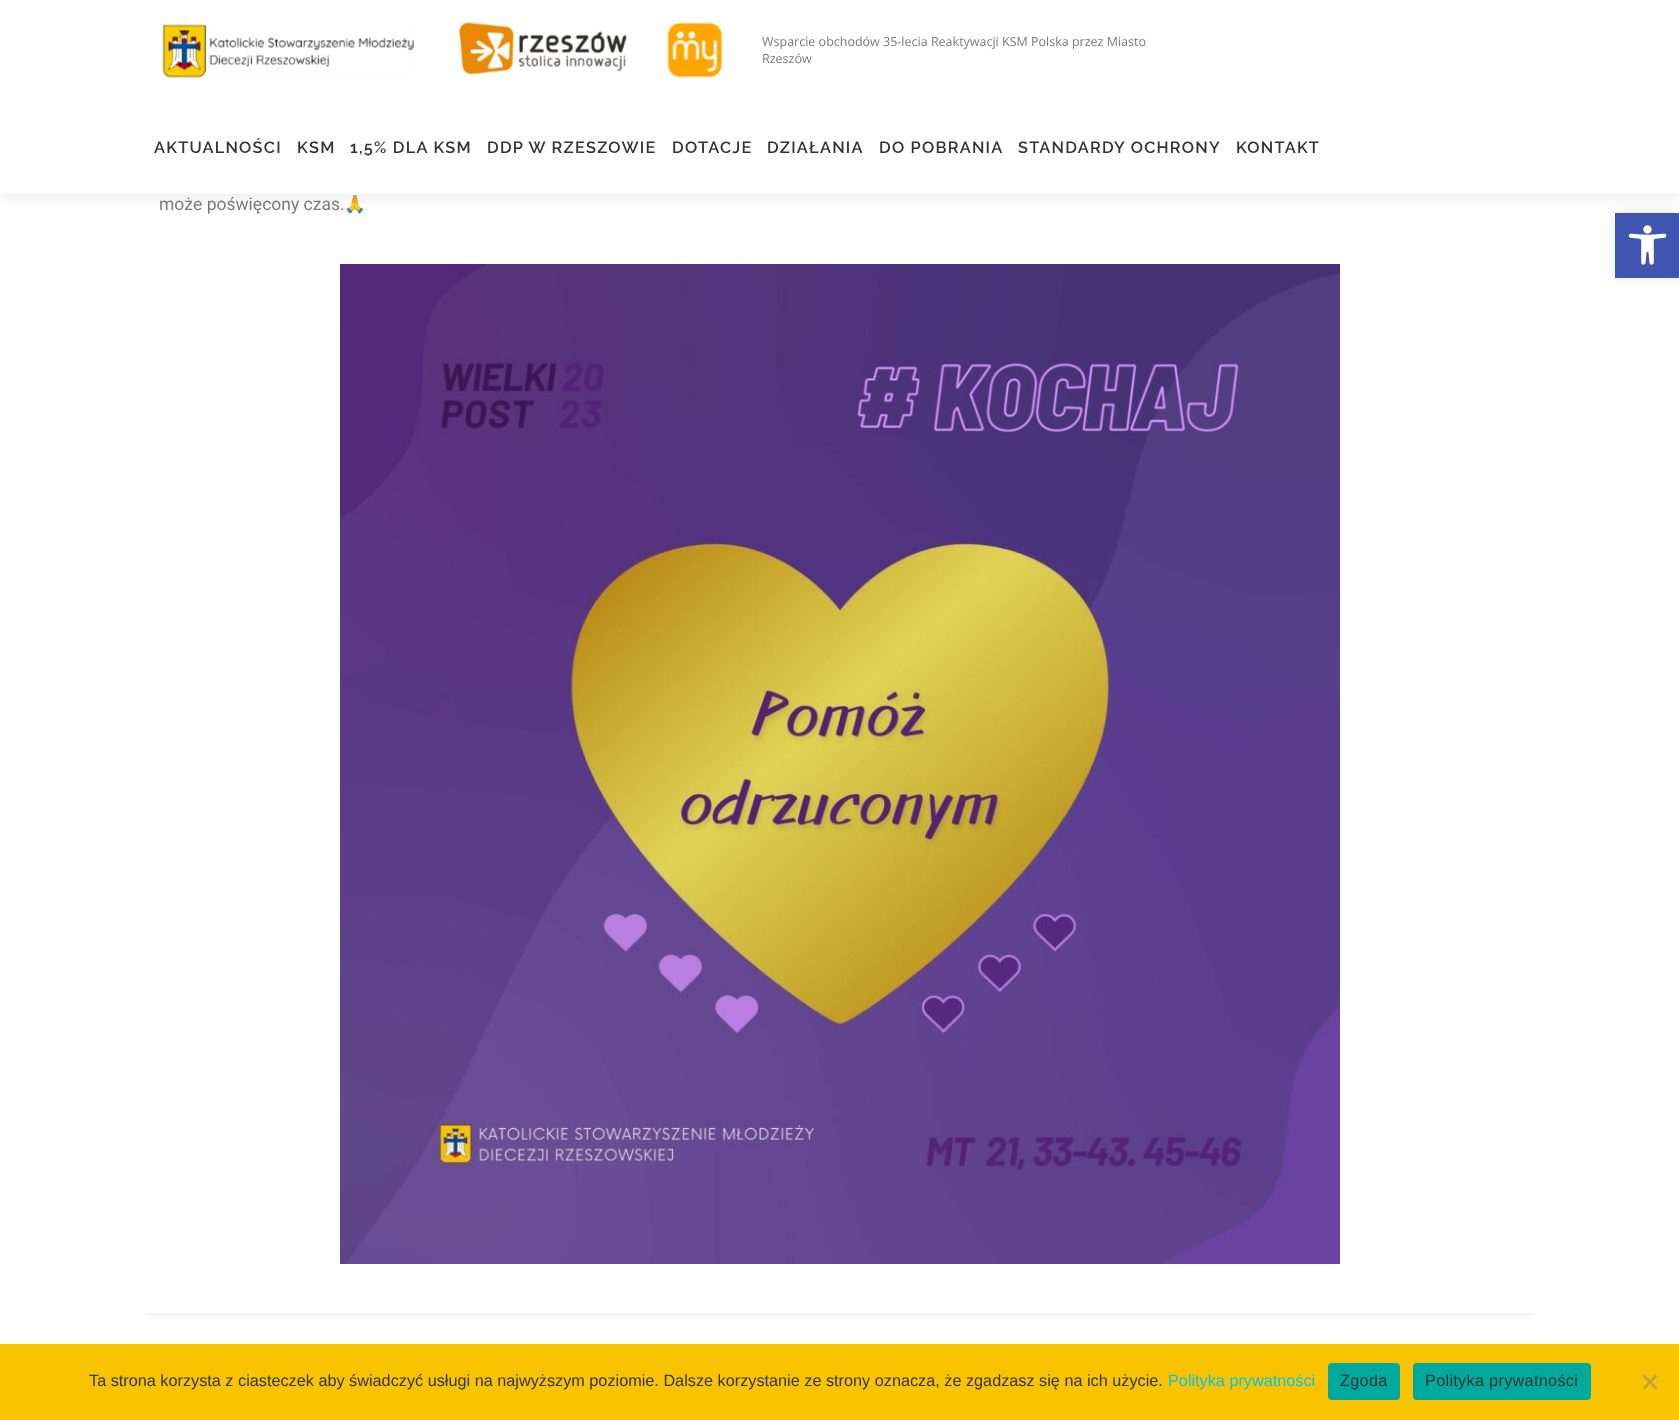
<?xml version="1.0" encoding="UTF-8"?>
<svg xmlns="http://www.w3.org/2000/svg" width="1679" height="1420">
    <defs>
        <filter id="blur1" x="-50%" y="-200%" width="200%" height="500%"><feGaussianBlur stdDeviation="6"/></filter>
    </defs>
    <rect width="100%" height="100%" fill="#FFFFFF"/>
    <rect x="0" y="6" width="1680" height="194" fill="#323232" fill-opacity="0.06" filter="url(#blur1)"/>
    <rect x="0" y="1" width="1679" height="193" fill="#FFFFFF"/>
    <image x="162" y="24" width="252" height="54" href="img_01.png"/>
    <image x="458" y="22" width="169" height="53" href="img_02.png"/>
    <image x="667" y="22" width="56" height="56" href="img_03.png"/>
    <text font-family="Open Sans" font-size="12.5" fill="#7A7A7A">
        <tspan x="762" y="46">Wsparcie obchodów 35-lecia Reaktywacji KSM Polska przez Miasto</tspan>
        <tspan x="762" y="63">Rzeszów</tspan>
    </text>
    <text x="154" y="153" font-family="Raleway" font-size="16.25" font-weight="600" letter-spacing="1.25" fill="#333333">AKTUALNOŚCI</text>
    <text x="297" y="153" font-family="Raleway" font-size="16.25" font-weight="600" letter-spacing="1.25" fill="#333333">KSM</text>
    <text x="350" y="153" font-family="Raleway" font-size="16.25" font-weight="600" letter-spacing="1.25" fill="#333333">1,5% DLA KSM</text>
    <text x="487" y="153" font-family="Raleway" font-size="16.25" font-weight="600" letter-spacing="1.25" fill="#333333">DDP W RZESZOWIE</text>
    <text x="672" y="153" font-family="Raleway" font-size="16.25" font-weight="600" letter-spacing="1.25" fill="#333333">DOTACJE</text>
    <text x="767" y="153" font-family="Raleway" font-size="16.25" font-weight="600" letter-spacing="1.25" fill="#333333">DZIAŁANIA</text>
    <text x="879" y="153" font-family="Raleway" font-size="16.25" font-weight="600" letter-spacing="1.25" fill="#333333">DO POBRANIA</text>
    <text x="1018" y="153" font-family="Raleway" font-size="16.25" font-weight="600" letter-spacing="1.25" fill="#333333">STANDARDY OCHRONY</text>
    <text x="1236" y="153" font-family="Raleway" font-size="16.25" font-weight="600" letter-spacing="1.25" fill="#333333">KONTAKT</text>
    <text x="159" y="210" font-family="Roboto" font-size="17.5" fill="#7A7A7A">może poświęcony czas.</text>
    <text x="344" y="210" font-family="Noto Color Emoji" font-size="17.5" fill="#7A7A7A">🙏</text>
    <image x="340" y="264" width="1000" height="1000" href="img_04.png"/>
    <rect x="146" y="1314" width="1388" height="1" fill="#E9E9E9"/>
    <rect x="1615" y="213" width="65" height="65" fill="#000000" fill-opacity="0.1" filter="url(#blur1)"/>
    <rect x="1615" y="213" width="64" height="65" fill="#4054B2"/>
    <image x="1628" y="225" width="39" height="40" href="img_05.png"/>
    <rect x="0" y="1344" width="1679" height="76" fill="#F8C301"/>
    <text x="89" y="1386" font-family="Liberation Sans" font-size="16.25" fill="#333333">Ta strona korzysta z ciasteczek aby świadczyć usługi na najwyższym poziomie. Dalsze korzystanie ze strony oznacza, że zgadzasz się na ich użycie.</text>
    <text x="1168" y="1386" font-family="Liberation Sans" font-size="16.25" fill="#03C4EB">Polityka prywatności</text>
    <rect x="1328" y="1363" width="72" height="37" rx="4" fill="#00A99D"/>
    <text x="1340" y="1386" font-family="Liberation Sans" font-size="16.25" letter-spacing="0.3" fill="#333333">Zgoda</text>
    <rect x="1413" y="1363" width="178" height="37" rx="4" fill="#00A99D"/>
    <text x="1425" y="1386" font-family="Liberation Sans" font-size="16.25" letter-spacing="0.3" fill="#333333">Polityka prywatności</text>
    <path d="M 1655.5 1374.5 L 1657.5 1376.5 L 1644.5 1389.5 L 1642.5 1388 Z" fill="#BCA241"/>
    <path d="M 1642.5 1376.5 L 1644.5 1374.5 L 1657.5 1388 L 1655.5 1389.5 Z" fill="#BCA241"/>
</svg>
